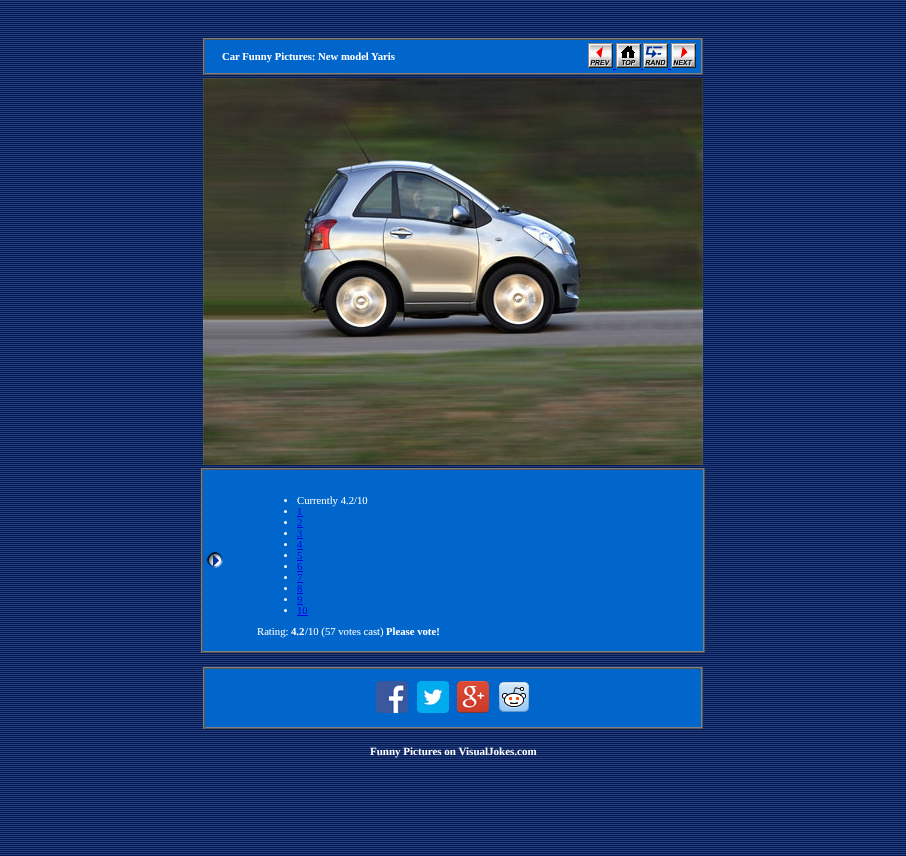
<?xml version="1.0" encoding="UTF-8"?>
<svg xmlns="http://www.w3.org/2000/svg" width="906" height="856">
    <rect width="100%" height="100%" fill="#FFFFFF"/>
    <image x="0" y="0" width="906" height="856" href="img_01.png"/>
    <rect x="205" y="40" width="496" height="33" fill="#0066CC"/>
    <rect x="203" y="38" width="500" height="1" fill="#808080"/>
    <rect x="702" y="38" width="1" height="37" fill="#555555"/>
    <rect x="203" y="74" width="500" height="1" fill="#555555"/>
    <rect x="203" y="38" width="1" height="37" fill="#808080"/>
    <rect x="204" y="39" width="498" height="1" fill="#555555"/>
    <rect x="701" y="39" width="1" height="35" fill="#808080"/>
    <rect x="204" y="73" width="498" height="1" fill="#808080"/>
    <rect x="204" y="39" width="1" height="35" fill="#555555"/>
    <text x="222" y="60" font-family="Liberation Serif" font-size="10.7" font-weight="700" fill="#FFFFFF">Car Funny Pictures: New model Yaris</text>
    <image x="588" y="43" width="25" height="25" href="img_02.png"/>
    <image x="616" y="43" width="25" height="25" href="img_03.png"/>
    <image x="643" y="43" width="25" height="25" href="img_04.png"/>
    <image x="671" y="43" width="25" height="25" href="img_05.png"/>
    <rect x="613" y="69" width="3" height="1" fill="#0000EE"/>
    <rect x="641" y="69" width="2" height="1" fill="#0000EE"/>
    <rect x="668" y="69" width="3" height="1" fill="#0000EE"/>
    <image x="203" y="78" width="500" height="387" href="img_06.png"/>
    <rect x="203" y="470" width="500" height="181" fill="#0066CC"/>
    <rect x="201" y="468" width="504" height="1" fill="#808080"/>
    <rect x="704" y="468" width="1" height="185" fill="#555555"/>
    <rect x="201" y="652" width="504" height="1" fill="#555555"/>
    <rect x="201" y="468" width="1" height="185" fill="#808080"/>
    <rect x="202" y="469" width="502" height="1" fill="#555555"/>
    <rect x="703" y="469" width="1" height="183" fill="#808080"/>
    <rect x="202" y="651" width="502" height="1" fill="#808080"/>
    <rect x="202" y="469" width="1" height="183" fill="#555555"/>
    <image x="206" y="551" width="17" height="17" href="img_07.png"/>
    <circle cx="285.5" cy="500.5" r="1.5" fill="#FFFFFF"/>
    <text x="297" y="504" font-family="Liberation Serif" font-size="10.7" fill="#FFFFFF">Currently 4.2/10</text>
    <circle cx="285.5" cy="511.5" r="1.5" fill="#FFFFFF"/>
    <text x="297" y="515" font-family="Liberation Serif" font-size="10.7" fill="#0000EE">1</text>
    <rect x="297" y="516" width="6" height="1" fill="#0000EE"/>
    <circle cx="285.5" cy="522.5" r="1.5" fill="#FFFFFF"/>
    <text x="297" y="526" font-family="Liberation Serif" font-size="10.7" fill="#0000EE">2</text>
    <rect x="297" y="527" width="6" height="1" fill="#0000EE"/>
    <circle cx="285.5" cy="533.5" r="1.5" fill="#FFFFFF"/>
    <text x="297" y="537" font-family="Liberation Serif" font-size="10.7" fill="#0000EE">3</text>
    <rect x="297" y="538" width="6" height="1" fill="#0000EE"/>
    <circle cx="285.5" cy="544.5" r="1.5" fill="#FFFFFF"/>
    <text x="297" y="548" font-family="Liberation Serif" font-size="10.7" fill="#0000EE">4</text>
    <rect x="297" y="549" width="6" height="1" fill="#0000EE"/>
    <circle cx="285.5" cy="555.5" r="1.5" fill="#FFFFFF"/>
    <text x="297" y="559" font-family="Liberation Serif" font-size="10.7" fill="#0000EE">5</text>
    <rect x="297" y="560" width="6" height="1" fill="#0000EE"/>
    <circle cx="285.5" cy="566.5" r="1.5" fill="#FFFFFF"/>
    <text x="297" y="570" font-family="Liberation Serif" font-size="10.7" fill="#0000EE">6</text>
    <rect x="297" y="571" width="6" height="1" fill="#0000EE"/>
    <circle cx="285.5" cy="577.5" r="1.5" fill="#FFFFFF"/>
    <text x="297" y="581" font-family="Liberation Serif" font-size="10.7" fill="#0000EE">7</text>
    <rect x="297" y="582" width="6" height="1" fill="#0000EE"/>
    <circle cx="285.5" cy="588.5" r="1.5" fill="#FFFFFF"/>
    <text x="297" y="592" font-family="Liberation Serif" font-size="10.7" fill="#0000EE">8</text>
    <rect x="297" y="593" width="6" height="1" fill="#0000EE"/>
    <circle cx="285.5" cy="599.5" r="1.5" fill="#FFFFFF"/>
    <text x="297" y="603" font-family="Liberation Serif" font-size="10.7" fill="#0000EE">9</text>
    <rect x="297" y="604" width="6" height="1" fill="#0000EE"/>
    <circle cx="285.5" cy="610.5" r="1.5" fill="#FFFFFF"/>
    <text x="297" y="614" font-family="Liberation Serif" font-size="10.7" fill="#0000EE">10</text>
    <rect x="297" y="615" width="11" height="1" fill="#0000EE"/>
    <text x="257" y="635" font-family="Liberation Serif" font-size="10.7" fill="#FFFFFF">Rating:</text>
    <text x="291" y="635" font-family="Liberation Serif" font-size="10.7" font-weight="700" fill="#FFFFFF">4.2</text>
    <text x="305" y="635" font-family="Liberation Serif" font-size="10.7" fill="#FFFFFF">/10 (57 votes cast)</text>
    <text x="386" y="635" font-family="Liberation Serif" font-size="10.7" font-weight="700" fill="#FFFFFF">Please vote!</text>
    <rect x="205" y="669" width="496" height="58" fill="#0066CC"/>
    <rect x="203" y="667" width="500" height="1" fill="#808080"/>
    <rect x="702" y="667" width="1" height="62" fill="#555555"/>
    <rect x="203" y="728" width="500" height="1" fill="#555555"/>
    <rect x="203" y="667" width="1" height="62" fill="#808080"/>
    <rect x="204" y="668" width="498" height="1" fill="#555555"/>
    <rect x="701" y="668" width="1" height="60" fill="#808080"/>
    <rect x="204" y="727" width="498" height="1" fill="#808080"/>
    <rect x="204" y="668" width="1" height="60" fill="#555555"/>
    <image x="376" y="681" width="32" height="32" href="img_08.png"/>
    <image x="417" y="681" width="32" height="32" href="img_09.png"/>
    <image x="457" y="681" width="32" height="32" href="img_10.png"/>
    <image x="499" y="682" width="30" height="30" href="img_11.png"/>
    <text x="370" y="755" font-family="Liberation Serif" font-size="11" font-weight="700" fill="#FFFFFF">Funny Pictures on VisualJokes.com</text>
</svg>
